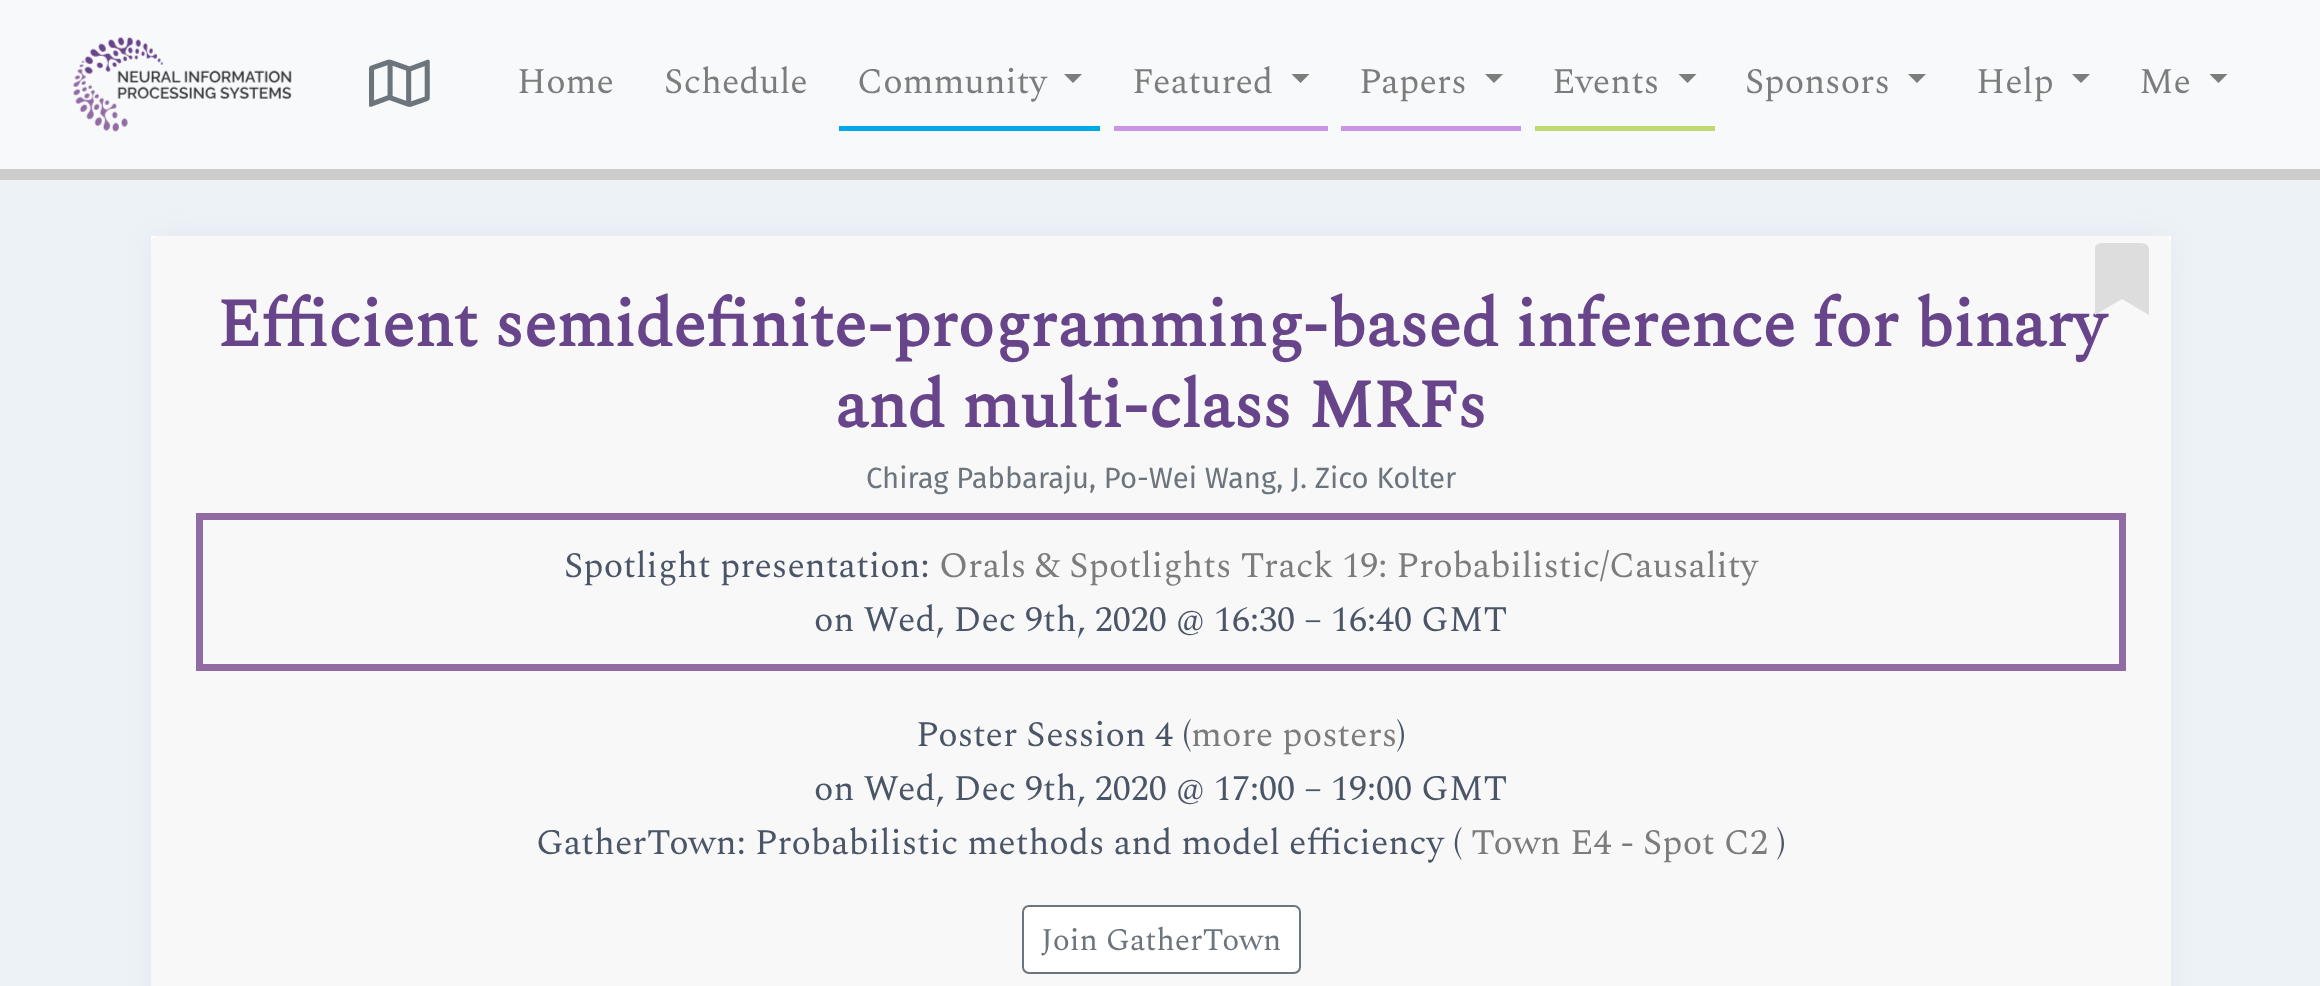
<?xml version="1.0" encoding="UTF-8"?>
<svg xmlns="http://www.w3.org/2000/svg" width="2320" height="986">
    <defs>
        <filter id="blur1" x="-50%" y="-200%" width="200%" height="500%"><feGaussianBlur stdDeviation="16"/></filter>
    </defs>
    <rect width="100%" height="100%" fill="#EDF2F7"/>
    <rect x="0" y="0" width="2320" height="169" fill="#F8F9FA"/>
    <rect x="0" y="169" width="2320" height="11" fill="#CCCCCC"/>
    <image x="72" y="36" width="220" height="96" href="img_01.png"/>
    <image x="369" y="59" width="61" height="48" href="img_02.png"/>
    <text x="517" y="93" font-family="Spectral" font-size="36" fill="#7C7C7C">Home</text>
    <text x="664" y="93" font-family="Spectral" font-size="36" fill="#7C7C7C">Schedule</text>
    <rect x="839" y="126" width="261" height="5" fill="#00A8E6"/>
    <text x="857" y="93" font-family="Spectral" font-size="36" fill="#7C7C7C">Community</text>
    <path d="M 1064 74 H 1082 L 1073 83 Z" fill="#7C7D7D"/>
    <rect x="1114" y="126" width="214" height="5" fill="#CB95E6"/>
    <text x="1132" y="93" font-family="Spectral" font-size="36" fill="#7C7C7C">Featured</text>
    <path d="M 1291.5 74 H 1309.5 L 1300.5 83 Z" fill="#7C7D7D"/>
    <rect x="1341" y="126" width="180" height="5" fill="#CB95E6"/>
    <text x="1359" y="93" font-family="Spectral" font-size="36" fill="#7C7C7C">Papers</text>
    <path d="M 1485 74 H 1503 L 1494 83 Z" fill="#7C7D7D"/>
    <rect x="1535" y="126" width="180" height="5" fill="#BED972"/>
    <text x="1552" y="93" font-family="Spectral" font-size="36" fill="#7C7C7C">Events</text>
    <path d="M 1678.5 74 H 1696.5 L 1687.5 83 Z" fill="#7C7D7D"/>
    <text x="1745" y="93" font-family="Spectral" font-size="36" fill="#7C7C7C">Sponsors</text>
    <path d="M 1908 74 H 1926 L 1917 83 Z" fill="#7C7D7D"/>
    <text x="1976" y="93" font-family="Spectral" font-size="36" fill="#7C7C7C">Help</text>
    <path d="M 2072 74 H 2090 L 2081 83 Z" fill="#7C7D7D"/>
    <text x="2139" y="93" font-family="Spectral" font-size="36" fill="#7C7C7C">Me</text>
    <path d="M 2209.5 74 H 2227.5 L 2218.5 83 Z" fill="#7C7D7D"/>
    <rect x="151" y="236" width="2020" height="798" fill="#E2E8F0" filter="url(#blur1)"/>
    <rect x="151" y="236" width="2020" height="7" fill="#FFFFFF"/>
    <path d="M 158 236 H 2164 C 2168 236 2171 239 2171 243 V 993 H 151 V 243 C 151 239 154 236 158 236 Z" fill="#F8F8F8"/>
    <text x="217" y="346" font-family="Spectral" font-size="67.5" font-weight="700" fill="#68448B">Efficient semidefinite-programming-based inference for binary</text>
    <path d="M 2095 315 V 248 C 2096 242 2103 243 2108 243 H 2135 C 2140 243 2147 242 2149 248 V 315 L 2122 299 Z" fill="#DDDDDD"/>
    <text x="835" y="427" font-family="Spectral" font-size="67.5" font-weight="700" fill="#68448B">and multi-class MRFs</text>
    <text x="866" y="488" font-family="Fira Sans" font-size="29.25" fill="#6C757D">Chirag Pabbaraju, Po-Wei Wang, J. Zico Kolter</text>
    <rect x="199.5" y="516.5" width="1923" height="151" fill="none" stroke="#916BA4" stroke-width="7"/>
    <text x="564" y="577" font-family="Spectral" font-size="36" fill="#4A5568">Spotlight presentation:</text>
    <text x="939" y="577" font-family="Spectral" font-size="36" fill="#7C7C7C">Orals &amp; Spotlights Track 19: Probabilistic/Causality</text>
    <text x="814" y="631" font-family="Spectral" font-size="36" fill="#4A5568">on Wed, Dec 9th, 2020 @ 16:30 – 16:40 GMT</text>
    <text x="916" y="746" font-family="Spectral" font-size="36" fill="#4A5568">Poster Session 4 (</text>
    <text x="1191" y="746" font-family="Spectral" font-size="36" fill="#7C7C7C">more posters</text>
    <text x="1397" y="746" font-family="Spectral" font-size="36" fill="#4A5568">)</text>
    <text x="814" y="800" font-family="Spectral" font-size="36" fill="#4A5568">on Wed, Dec 9th, 2020 @ 17:00 – 19:00 GMT</text>
    <text x="536" y="854" font-family="Spectral" font-size="36" fill="#4A5568">GatherTown: Probabilistic methods and model efficiency (</text>
    <text x="1471" y="854" font-family="Spectral" font-size="36" fill="#7C7C7C">Town E4 - Spot C2</text>
    <text x="1777" y="854" font-family="Spectral" font-size="36" fill="#4A5568">)</text>
    <rect x="1023" y="906" width="277" height="67" rx="6" fill="#FFFFFF" stroke="#6C757D" stroke-width="2"/>
    <text x="1041" y="950" font-family="Spectral" font-size="31.5" fill="#6C757D">Join GatherTown</text>
</svg>
